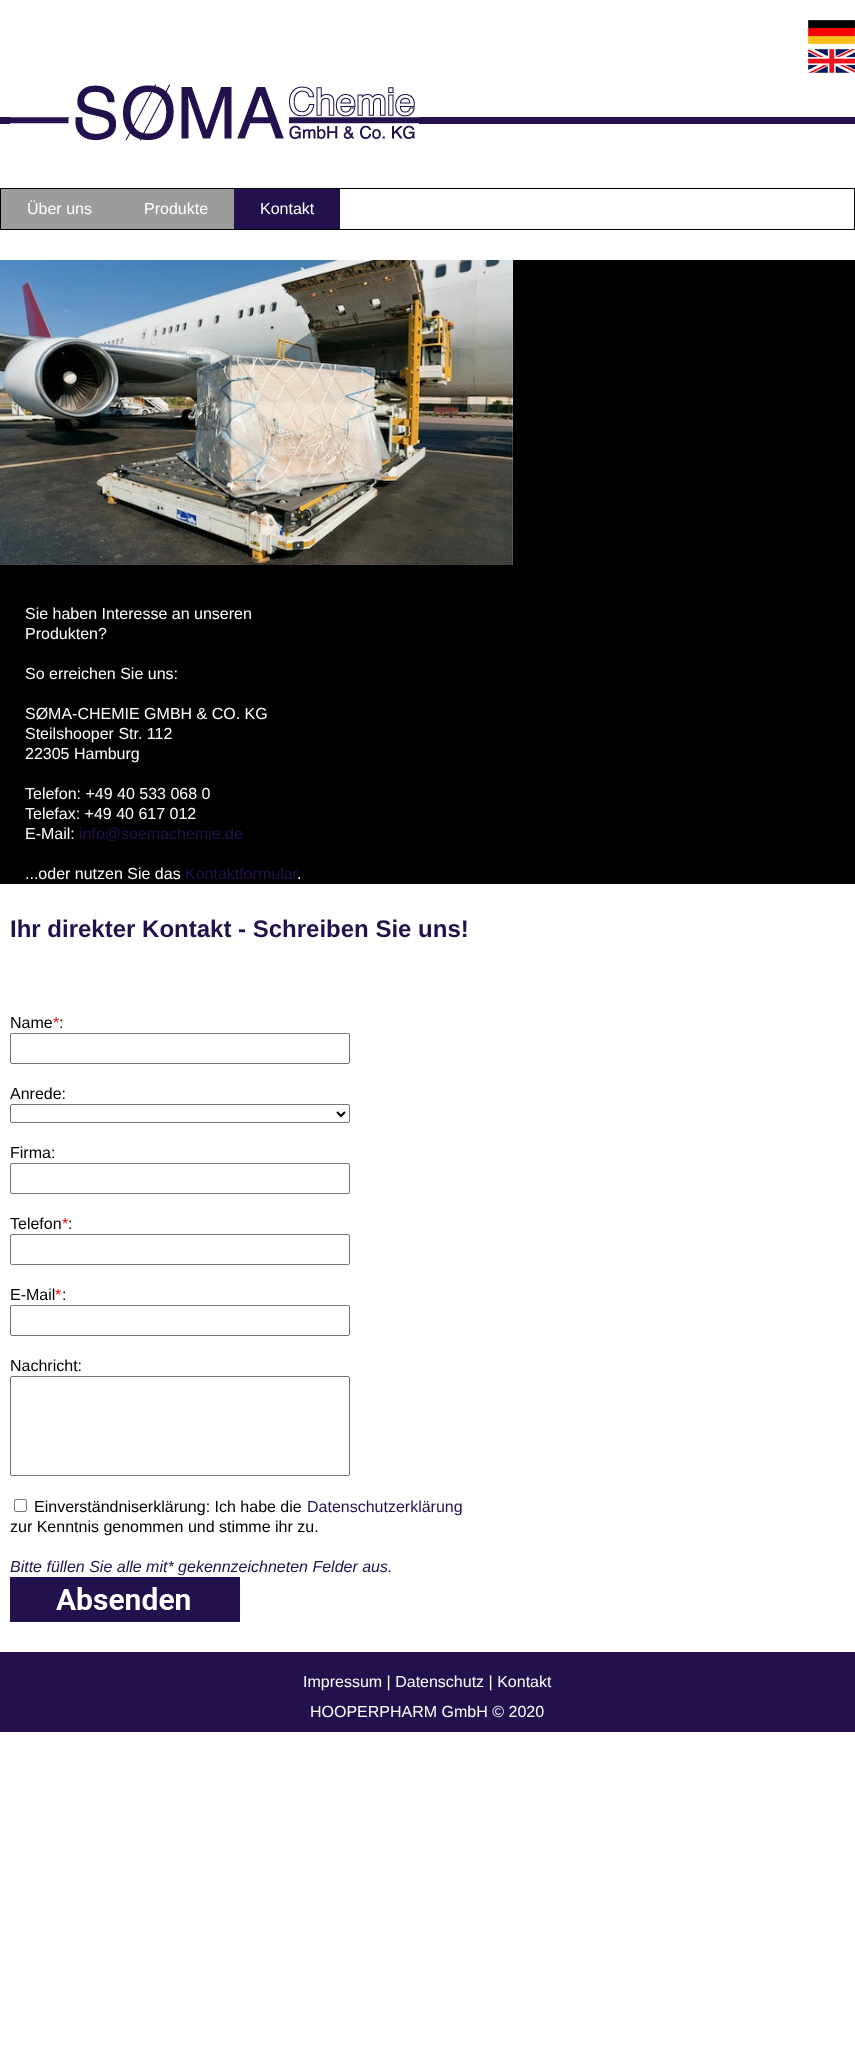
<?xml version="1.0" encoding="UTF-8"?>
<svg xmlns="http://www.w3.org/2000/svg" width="855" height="2057">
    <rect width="100%" height="100%" fill="#FFFFFF"/>
    <image x="808" y="20" width="47" height="24" href="img_01.png"/>
    <image x="808" y="49" width="47" height="24" href="img_02.png"/>
    <rect x="0" y="117" width="855" height="7" fill="#22114C"/>
    <image x="10" y="84" width="409" height="57" href="img_03.png"/>
    <rect x="0.5" y="188.5" width="854" height="41" fill="none" stroke="#000000"/>
    <rect x="1" y="189" width="233" height="40" fill="#9C9C9C"/>
    <text x="27" y="214" font-family="Liberation Sans" font-size="16" fill="#FFFFFF">Über uns</text>
    <text x="144" y="214" font-family="Liberation Sans" font-size="16" fill="#FFFFFF">Produkte</text>
    <rect x="234" y="189" width="106" height="40" fill="#22114C"/>
    <text x="260" y="214" font-family="Liberation Sans" font-size="16" fill="#FFFFFF">Kontakt</text>
    <rect x="0" y="260" width="855" height="624" fill="#000000"/>
    <image x="0" y="260" width="513" height="305" href="img_04.png"/>
    <text font-family="Liberation Sans" font-size="16" fill="#FFFFFF">
        <tspan x="25" y="619">Sie haben Interesse an unseren</tspan>
        <tspan x="25" y="639">Produkten?</tspan>
    </text>
    <text x="25" y="679" font-family="Liberation Sans" font-size="16" fill="#FFFFFF">So erreichen Sie uns:</text>
    <text font-family="Liberation Sans" font-size="16" fill="#FFFFFF">
        <tspan x="25" y="719">SØMA-CHEMIE GMBH &amp; CO. KG</tspan>
        <tspan x="25" y="739">Steilshooper Str. 112</tspan>
        <tspan x="25" y="759">22305 Hamburg</tspan>
    </text>
    <text font-family="Liberation Sans" font-size="16" fill="#FFFFFF">
        <tspan x="25" y="799">Telefon: +49 40 533 068 0</tspan>
        <tspan x="25" y="819">Telefax: +49 40 617 012</tspan>
        <tspan x="25" y="839">E-Mail:</tspan>
    </text>
    <text x="79" y="839" font-family="Liberation Sans" font-size="16" fill="#22114C">info@soemachemie.de</text>
    <text x="25" y="879" font-family="Liberation Sans" font-size="16" fill="#FFFFFF">...oder nutzen Sie das</text>
    <text x="185" y="879" font-family="Liberation Sans" font-size="16" fill="#22114C">Kontaktformular</text>
    <text x="297" y="879" font-family="Liberation Sans" font-size="16" fill="#FFFFFF">.</text>
    <text x="10" y="937" font-family="Liberation Sans" font-size="24" font-weight="700" fill="#22114C">Ihr direkter Kontakt - Schreiben Sie uns!</text>
    <text x="10" y="1028" font-family="Liberation Sans" font-size="16" fill="#000000">Name</text>
    <text x="53" y="1028" font-family="Liberation Sans" font-size="16" fill="#FF0000">*</text>
    <text x="59" y="1028" font-family="Liberation Sans" font-size="16" fill="#000000">:</text>
    <rect x="10.5" y="1033.5" width="339" height="30" rx="1.5" fill="none" stroke="#767676"/>
    <text x="10" y="1099" font-family="Liberation Sans" font-size="16" fill="#000000">Anrede:</text>
    <rect x="10.5" y="1104.5" width="339" height="18" rx="1.5" fill="none" stroke="#767676"/>
    <path d="M 337 1112 L 341 1116 L 345 1112" fill="none" stroke="#000000" stroke-width="2"/>
    <text x="10" y="1158" font-family="Liberation Sans" font-size="16" fill="#000000">Firma:</text>
    <rect x="10.5" y="1163.5" width="339" height="30" rx="1.5" fill="none" stroke="#767676"/>
    <text x="10" y="1229" font-family="Liberation Sans" font-size="16" fill="#000000">Telefon</text>
    <text x="62" y="1229" font-family="Liberation Sans" font-size="16" fill="#FF0000">*</text>
    <text x="68" y="1229" font-family="Liberation Sans" font-size="16" fill="#000000">:</text>
    <rect x="10.5" y="1234.5" width="339" height="30" rx="1.5" fill="none" stroke="#767676"/>
    <text x="10" y="1300" font-family="Liberation Sans" font-size="16" fill="#000000">E-Mail</text>
    <text x="55" y="1300" font-family="Liberation Sans" font-size="16" fill="#FF0000">*</text>
    <text x="62" y="1300" font-family="Liberation Sans" font-size="16" fill="#000000">:</text>
    <rect x="10.5" y="1305.5" width="339" height="30" rx="1.5" fill="none" stroke="#767676"/>
    <text x="10" y="1371" font-family="Liberation Sans" font-size="16" fill="#000000">Nachricht:</text>
    <rect x="10.5" y="1376.5" width="339" height="99" rx="1.5" fill="none" stroke="#767676"/>
    <rect x="14.5" y="1499.5" width="12" height="12" rx="1.5" fill="none" stroke="#767676"/>
    <text x="34" y="1512" font-family="Liberation Sans" font-size="16" fill="#000000">Einverständniserklärung: Ich habe die</text>
    <text x="307" y="1512" font-family="Liberation Sans" font-size="16" fill="#22114C">Datenschutzerklärung</text>
    <text x="10" y="1532" font-family="Liberation Sans" font-size="16" fill="#000000">zur Kenntnis genommen und stimme ihr zu.</text>
    <text x="10" y="1572" font-family="Liberation Sans" font-size="16" font-style="italic" fill="#22114C">Bitte füllen Sie alle mit* gekennzeichneten Felder aus.</text>
    <image x="10" y="1577" width="230" height="45" href="img_05.png"/>
    <rect x="0" y="1652" width="855" height="80" fill="#22114C"/>
    <text x="303" y="1687" font-family="Liberation Sans" font-size="16" fill="#FFFFFF">Impressum | Datenschutz | Kontakt</text>
    <text x="310" y="1717" font-family="Liberation Sans" font-size="16" fill="#FFFFFF">HOOPERPHARM GmbH © 2020</text>
</svg>
